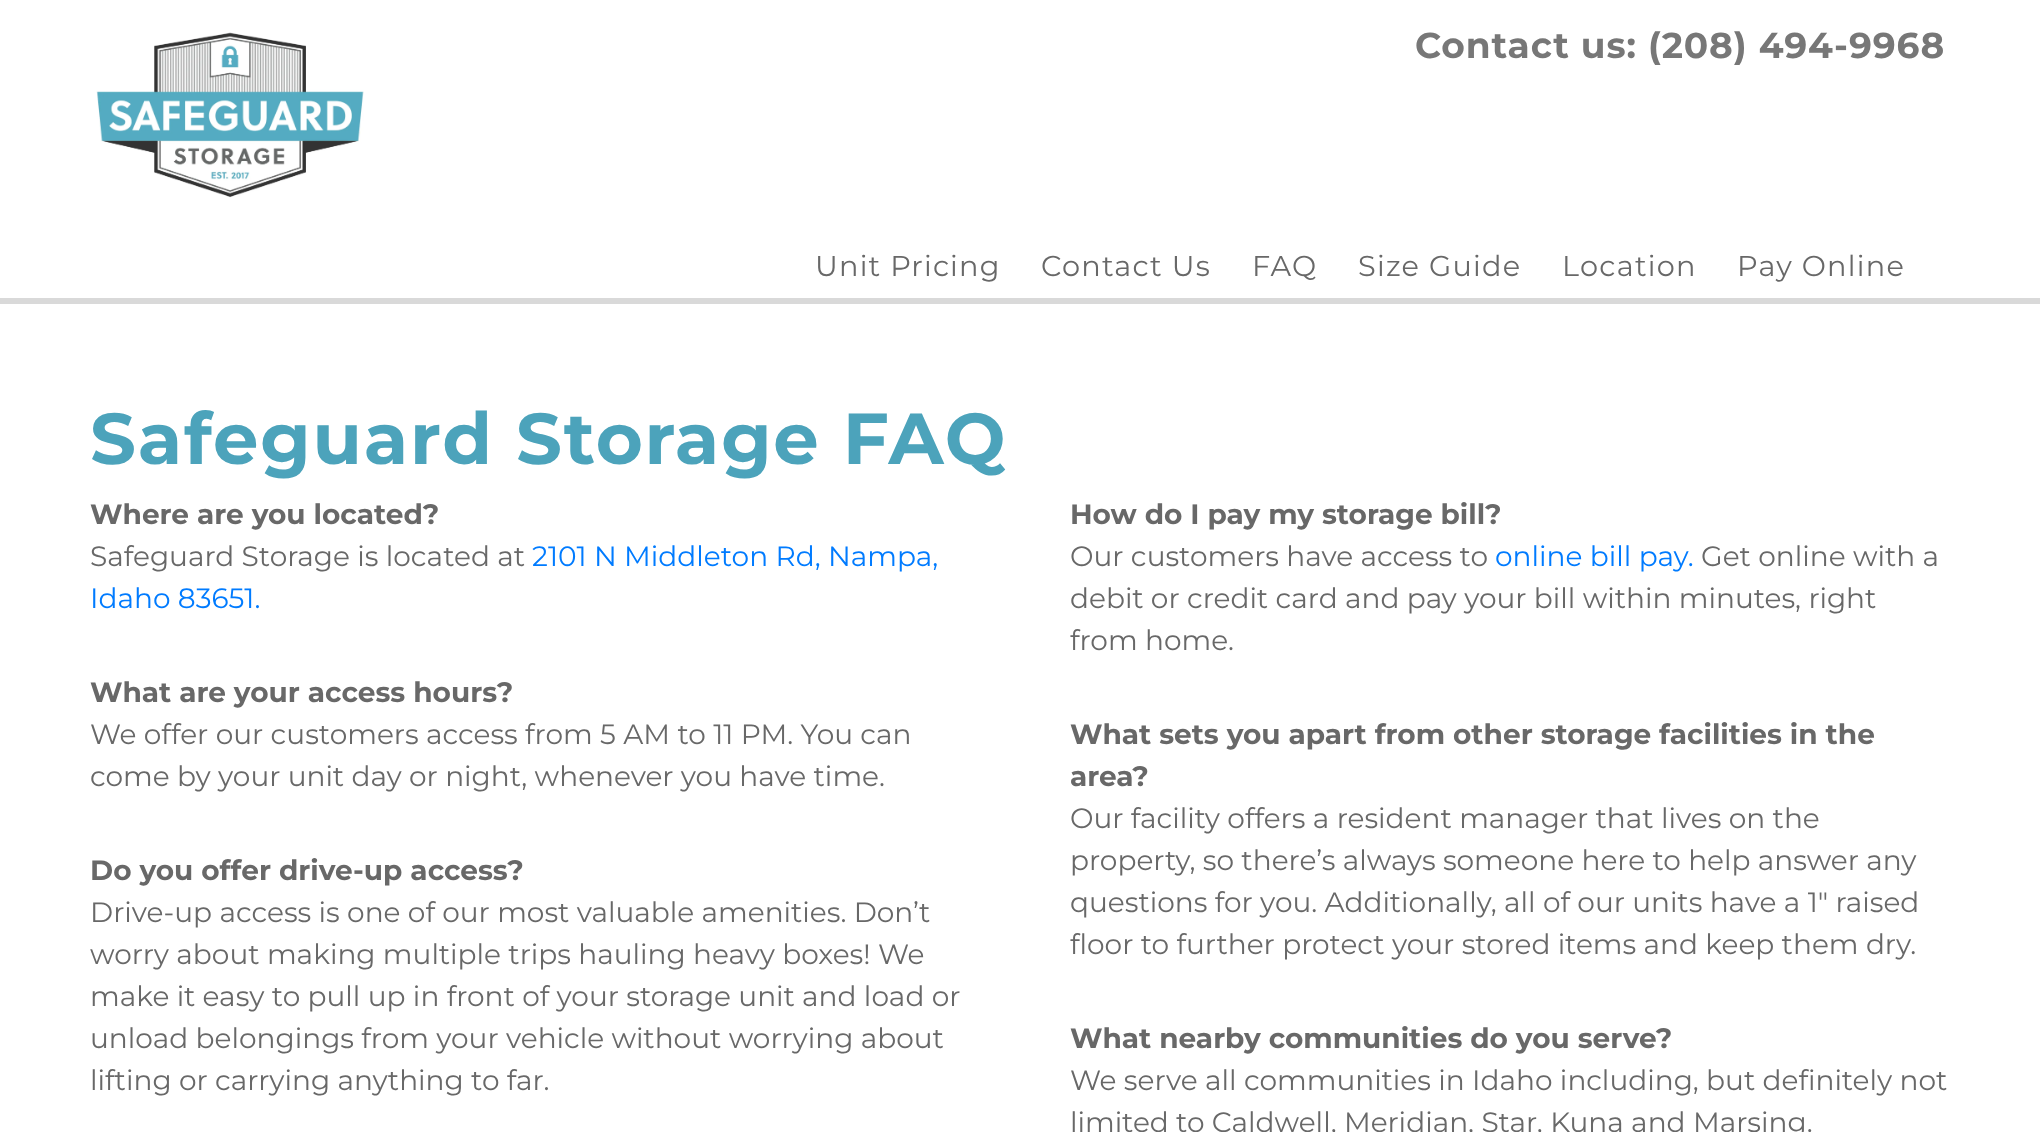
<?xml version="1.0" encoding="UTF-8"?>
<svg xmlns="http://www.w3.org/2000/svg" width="2040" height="1132">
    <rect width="100%" height="100%" fill="#FFFFFF"/>
    <image x="96" y="32" width="268" height="166" href="img_01.png"/>
    <text x="1415" y="58" font-family="Montserrat" font-size="36" font-weight="700" letter-spacing="0.9" fill="#777777">Contact us: (208) 494-9968</text>
    <rect x="0" y="298" width="2040" height="6" fill="#D9D9D9"/>
    <text x="815" y="276" font-family="Montserrat" font-size="28.75" letter-spacing="1.25" fill="#686868">Unit Pricing</text>
    <text x="1041" y="276" font-family="Montserrat" font-size="28.75" letter-spacing="1.25" fill="#686868">Contact Us</text>
    <text x="1252" y="276" font-family="Montserrat" font-size="28.75" letter-spacing="1.25" fill="#686868">FAQ</text>
    <text x="1358" y="276" font-family="Montserrat" font-size="28.75" letter-spacing="1.25" fill="#686868">Size Guide</text>
    <text x="1562" y="276" font-family="Montserrat" font-size="28.75" letter-spacing="1.25" fill="#686868">Location</text>
    <text x="1737" y="276" font-family="Montserrat" font-size="28.75" letter-spacing="1.25" fill="#686868">Pay Online</text>
    <text x="90" y="464" font-family="Montserrat" font-size="72" font-weight="700" letter-spacing="1.8" fill="#4CA3BB">Safeguard Storage FAQ</text>
    <text x="90" y="524" font-family="Montserrat" font-size="28" font-weight="700" fill="#686868">Where are you located?</text>
    <text x="90" y="566" font-family="Montserrat" font-size="28" fill="#686868">Safeguard Storage is located at</text>
    <text x="532" y="566" font-family="Montserrat" font-size="28" fill="#007BFF">2101 N Middleton Rd, Nampa,</text>
    <text x="90" y="608" font-family="Montserrat" font-size="28" fill="#007BFF">Idaho 83651.</text>
    <text x="90" y="702" font-family="Montserrat" font-size="28" font-weight="700" fill="#686868">What are your access hours?</text>
    <text font-family="Montserrat" font-size="28" fill="#686868">
        <tspan x="90" y="744">We offer our customers access from 5 AM to 11 PM. You can</tspan>
        <tspan x="90" y="786">come by your unit day or night, whenever you have time.</tspan>
    </text>
    <text x="90" y="880" font-family="Montserrat" font-size="28" font-weight="700" fill="#686868">Do you offer drive-up access?</text>
    <text font-family="Montserrat" font-size="28" fill="#686868">
        <tspan x="90" y="922">Drive-up access is one of our most valuable amenities. Don’t</tspan>
        <tspan x="90" y="964">worry about making multiple trips hauling heavy boxes! We</tspan>
        <tspan x="90" y="1006">make it easy to pull up in front of your storage unit and load or</tspan>
        <tspan x="90" y="1048">unload belongings from your vehicle without worrying about</tspan>
        <tspan x="90" y="1090">lifting or carrying anything to far.</tspan>
    </text>
    <text x="1070" y="524" font-family="Montserrat" font-size="28" font-weight="700" fill="#686868">How do I pay my storage bill?</text>
    <text x="1070" y="566" font-family="Montserrat" font-size="28" fill="#686868">Our customers have access to</text>
    <text x="1495" y="566" font-family="Montserrat" font-size="28" fill="#007BFF">online bill pay.</text>
    <text x="1701" y="566" font-family="Montserrat" font-size="28" fill="#686868">Get online with a</text>
    <text font-family="Montserrat" font-size="28" fill="#686868">
        <tspan x="1070" y="608">debit or credit card and pay your bill within minutes, right</tspan>
        <tspan x="1070" y="650">from home.</tspan>
    </text>
    <text font-family="Montserrat" font-size="28" font-weight="700" fill="#686868">
        <tspan x="1070" y="744">What sets you apart from other storage facilities in the</tspan>
        <tspan x="1070" y="786">area?</tspan>
    </text>
    <text font-family="Montserrat" font-size="28" fill="#686868">
        <tspan x="1070" y="828">Our facility offers a resident manager that lives on the</tspan>
        <tspan x="1070" y="870">property, so there’s always someone here to help answer any</tspan>
        <tspan x="1070" y="912">questions for you. Additionally, all of our units have a 1" raised</tspan>
        <tspan x="1070" y="954">floor to further protect your stored items and keep them dry.</tspan>
    </text>
    <text x="1070" y="1048" font-family="Montserrat" font-size="28" font-weight="700" fill="#686868">What nearby communities do you serve?</text>
    <text font-family="Montserrat" font-size="28" fill="#686868">
        <tspan x="1070" y="1090">We serve all communities in Idaho including, but definitely not</tspan>
        <tspan x="1070" y="1132">limited to Caldwell, Meridian, Star, Kuna and Marsing.</tspan>
    </text>
</svg>
